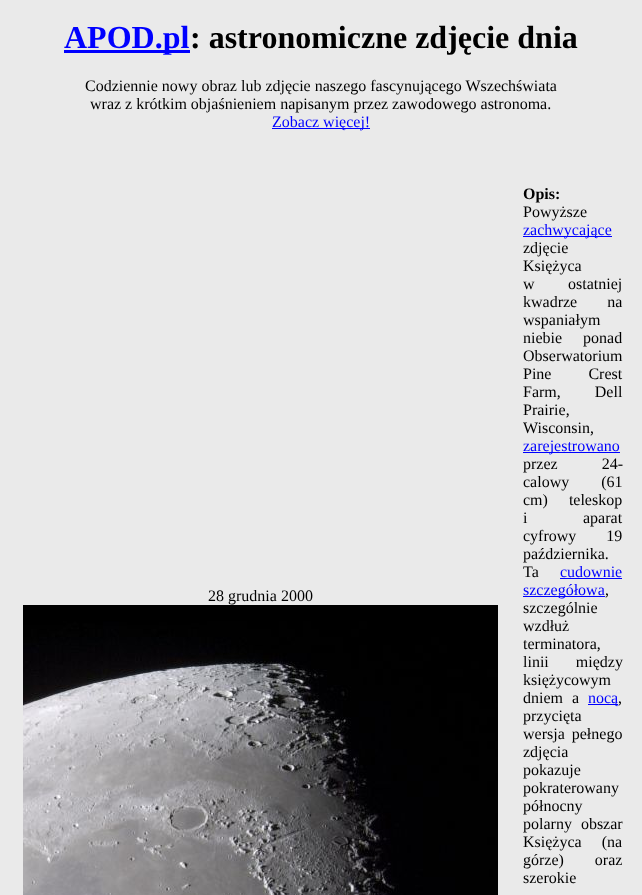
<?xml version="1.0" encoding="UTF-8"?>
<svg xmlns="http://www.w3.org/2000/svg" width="642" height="895">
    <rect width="100%" height="100%" fill="#EAEAEA"/>
    <rect x="64" y="50" width="126" height="3" fill="#0000FF"/>
    <text x="64" y="48" font-family="Liberation Serif" font-size="32" font-weight="700" fill="#0000FF">APOD.pl</text>
    <text x="190" y="48" font-family="Liberation Serif" font-size="32" font-weight="700" fill="#000000">: astronomiczne zdjęcie dnia</text>
    <text x="85" y="91" font-family="Liberation Serif" font-size="16" fill="#000000">Codziennie nowy obraz lub zdjęcie naszego fascynującego Wszechświata</text>
    <text x="90" y="109" font-family="Liberation Serif" font-size="16" fill="#000000">wraz z krótkim objaśnieniem napisanym przez zawodowego astronoma.</text>
    <rect x="272" y="128" width="98" height="1" fill="#0000FF"/>
    <text x="272" y="127" font-family="Liberation Serif" font-size="16" fill="#0000FF">Zobacz więcej!</text>
    <text x="208" y="601" font-family="Liberation Serif" font-size="16" fill="#000000">28 grudnia 2000</text>
    <image x="23" y="605" width="475" height="290" href="img_01.png"/>
    <text x="523" y="199" font-family="Liberation Serif" font-size="16" font-weight="700" fill="#000000">Opis:</text>
    <text x="523" y="217" font-family="Liberation Serif" font-size="16" fill="#000000">Powyższe</text>
    <rect x="523" y="236" width="89" height="1" fill="#0000FF"/>
    <text x="523" y="235" font-family="Liberation Serif" font-size="16" fill="#0000FF">zachwycające</text>
    <text font-family="Liberation Serif" font-size="16" fill="#000000">
        <tspan x="523" y="253">zdjęcie</tspan>
        <tspan x="523" y="271">Księżyca</tspan>
        <tspan x="523" y="289">w</tspan>
    </text>
    <text x="568" y="289" font-family="Liberation Serif" font-size="16" fill="#000000">ostatniej</text>
    <text font-family="Liberation Serif" font-size="16" fill="#000000">
        <tspan x="523" y="307" word-spacing="26">kwadrze na</tspan>
        <tspan x="523" y="325">wspaniałym</tspan>
        <tspan x="523" y="343" word-spacing="17">niebie ponad</tspan>
        <tspan x="523" y="361">Obserwatorium</tspan>
        <tspan x="523" y="379" word-spacing="33">Pine Crest</tspan>
        <tspan x="523" y="397" word-spacing="30">Farm, Dell</tspan>
        <tspan x="523" y="415">Prairie,</tspan>
        <tspan x="523" y="433">Wisconsin,</tspan>
    </text>
    <rect x="523" y="452" width="97" height="1" fill="#0000FF"/>
    <text x="523" y="451" font-family="Liberation Serif" font-size="16" fill="#0000FF">zarejestrowano</text>
    <text font-family="Liberation Serif" font-size="16" fill="#000000">
        <tspan x="523" y="469" word-spacing="40">przez 24-</tspan>
        <tspan x="523" y="487" word-spacing="28">calowy (61</tspan>
        <tspan x="523" y="505" word-spacing="17">cm) teleskop</tspan>
        <tspan x="523" y="523">i</tspan>
    </text>
    <text x="583" y="523" font-family="Liberation Serif" font-size="16" fill="#000000">aparat</text>
    <text font-family="Liberation Serif" font-size="16" fill="#000000">
        <tspan x="523" y="541" word-spacing="26">cyfrowy 19</tspan>
        <tspan x="523" y="559">października.</tspan>
        <tspan x="523" y="577">Ta</tspan>
    </text>
    <text x="560" y="577" font-family="Liberation Serif" font-size="16" fill="#0000FF">cudownie</text>
    <rect x="560" y="578" width="62" height="1" fill="#0000FF"/>
    <rect x="523" y="596" width="82" height="1" fill="#0000FF"/>
    <text x="523" y="595" font-family="Liberation Serif" font-size="16" fill="#0000FF">szczegółowa</text>
    <text x="605" y="595" font-family="Liberation Serif" font-size="16" fill="#000000">,</text>
    <text font-family="Liberation Serif" font-size="16" fill="#000000">
        <tspan x="523" y="613">szczególnie</tspan>
        <tspan x="523" y="631">wzdłuż</tspan>
        <tspan x="523" y="649">terminatora,</tspan>
        <tspan x="523" y="667" word-spacing="23">linii między</tspan>
        <tspan x="523" y="685">księżycowym</tspan>
        <tspan x="523" y="703" word-spacing="5">dniem a</tspan>
    </text>
    <rect x="588" y="704" width="30" height="1" fill="#0000FF"/>
    <text x="588" y="703" font-family="Liberation Serif" font-size="16" fill="#0000FF">nocą</text>
    <text x="618" y="703" font-family="Liberation Serif" font-size="16" fill="#000000">,</text>
    <text font-family="Liberation Serif" font-size="16" fill="#000000">
        <tspan x="523" y="721">przycięta</tspan>
        <tspan x="523" y="739" word-spacing="3">wersja pełnego</tspan>
        <tspan x="523" y="757">zdjęcia</tspan>
        <tspan x="523" y="775">pokazuje</tspan>
        <tspan x="523" y="793">pokraterowany</tspan>
        <tspan x="523" y="811">północny</tspan>
        <tspan x="523" y="829" word-spacing="5">polarny obszar</tspan>
        <tspan x="523" y="847" word-spacing="16">Księżyca (na</tspan>
        <tspan x="523" y="865" word-spacing="27">górze) oraz</tspan>
        <tspan x="523" y="883">szerokie</tspan>
    </text>
</svg>
